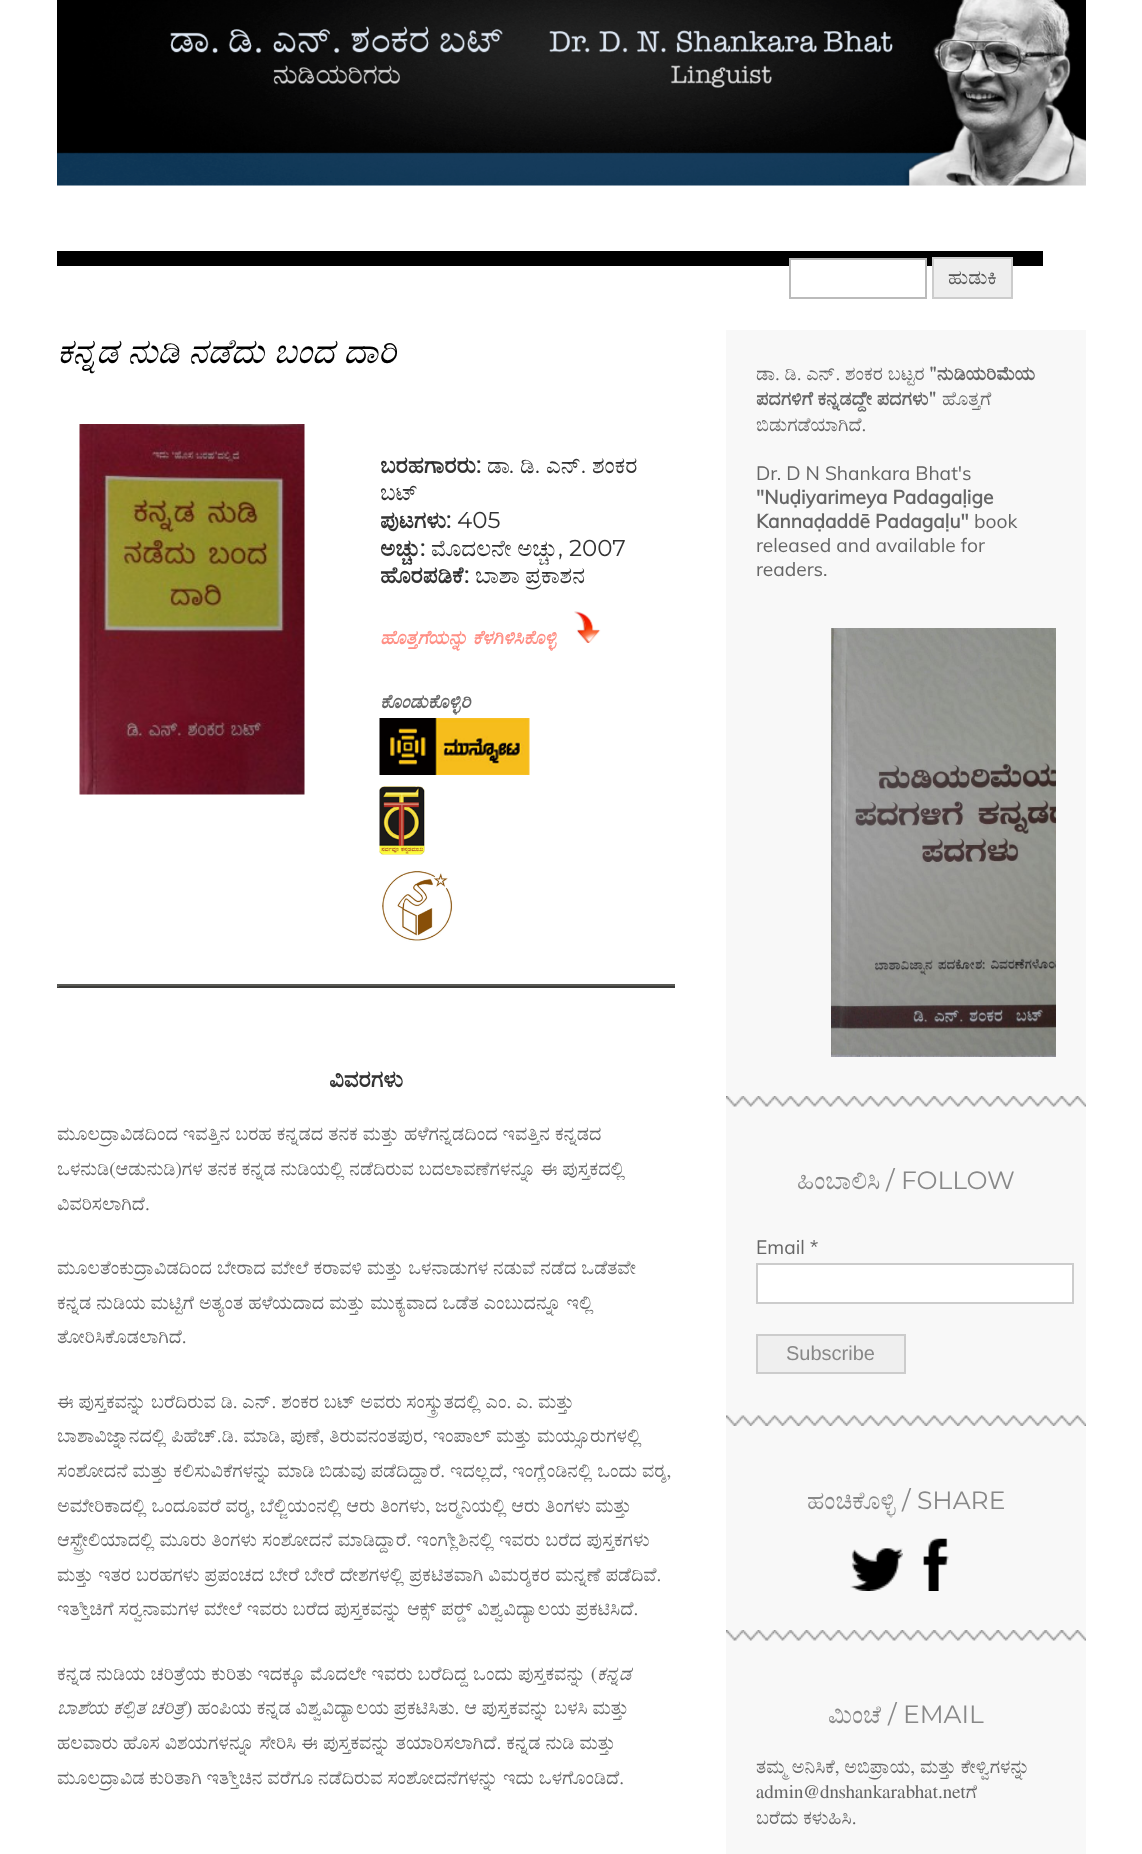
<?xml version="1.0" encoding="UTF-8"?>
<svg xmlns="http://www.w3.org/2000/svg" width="1142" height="1854">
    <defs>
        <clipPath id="clip1"><rect x="57" y="315" width="618" height="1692"/></clipPath>
        <clipPath id="clip2"><rect x="756" y="360" width="300" height="702"/></clipPath>
    </defs>
    <rect width="100%" height="100%" fill="#FFFFFF"/>
    <image x="57" y="0" width="1029" height="186" href="img_01.png"/>
    <rect x="57" y="251" width="986" height="15" fill="#000000"/>
    <rect x="791" y="260" width="134" height="6" fill="#FFFFFF"/>
    <rect x="790" y="259" width="136" height="39" fill="none" stroke="#BBBBBB" stroke-width="2"/>
    <rect x="933" y="258" width="79" height="40" fill="#EEEEEE" stroke="#CCCCCC" stroke-width="2"/>
    <text x="948" y="284" font-family="FreeSerif" font-size="20" fill="#555555">ಹುಡುಕಿ</text>
    <text x="57" y="363" word-spacing="0.5" font-family="FreeSerif" font-size="34.5" font-style="italic" fill="#000000">ಕನ್ನಡ ನುಡಿ ನಡೆದು ಬಂದ ದಾರಿ</text>
    <image x="79" y="424" width="226" height="371" href="img_02.png"/>
    <text x="380" y="473" font-family="FreeSerif" font-size="23" font-weight="700" fill="#333333">ಬರಹಗಾರರು</text>
    <text x="476" y="473" font-family="Montserrat" font-size="23" font-weight="700" fill="#333333">:</text>
    <text x="487" y="473" font-family="FreeSerif" font-size="23" fill="#333333">ಡಾ</text>
    <text x="509" y="473" font-family="Montserrat" font-size="23" font-weight="100" fill="#333333">.</text>
    <text x="520" y="473" font-family="FreeSerif" font-size="23" fill="#333333">ಡಿ</text>
    <text x="535" y="473" font-family="Montserrat" font-size="23" font-weight="100" fill="#333333">.</text>
    <text x="546" y="473" font-family="FreeSerif" font-size="23" fill="#333333">ಎನ್</text>
    <text x="581" y="473" font-family="Montserrat" font-size="23" font-weight="100" fill="#333333">.</text>
    <text x="592" y="473" font-family="FreeSerif" font-size="23" fill="#333333">ಶಂಕರ</text>
    <text x="380" y="500" font-family="FreeSerif" font-size="23" fill="#333333">ಬಟ್</text>
    <text x="380" y="528" font-family="FreeSerif" font-size="23" font-weight="700" fill="#333333">ಪುಟಗಳು</text>
    <text x="446" y="528" font-family="Montserrat" font-size="23" font-weight="700" fill="#333333">:</text>
    <text x="457" y="528" font-family="Montserrat" font-size="23" font-weight="100" fill="#333333">405</text>
    <text x="380" y="556" font-family="FreeSerif" font-size="23" font-weight="700" fill="#333333">ಅಚ್ಚು</text>
    <text x="420" y="556" font-family="Montserrat" font-size="23" font-weight="700" fill="#333333">:</text>
    <text x="431" y="556" font-family="FreeSerif" font-size="23" fill="#333333">ಮೊದಲನೇ ಅಚ್ಚು</text>
    <text x="558" y="556" font-family="Montserrat" font-size="23" font-weight="100" fill="#333333">, 2007</text>
    <text x="380" y="583" font-family="FreeSerif" font-size="23" font-weight="700" fill="#333333">ಹೊರಪಡಿಕೆ</text>
    <text x="464" y="583" font-family="Montserrat" font-size="23" font-weight="700" fill="#333333">:</text>
    <text x="475" y="583" font-family="FreeSerif" font-size="23" fill="#333333">ಬಾಶಾ ಪ್ರಕಾಶನ</text>
    <text x="380" y="644" font-family="FreeSerif" font-size="19.2" font-weight="700" font-style="italic" fill="#FF8F85">ಹೊತ್ತಗೆಯನ್ನು ಕೆಳಗಿಳಿಸಿಕೊಳ್ಳಿ</text>
    <image x="574" y="611" width="27" height="32" href="img_03.png"/>
    <text x="380" y="708" font-family="FreeSerif" font-size="19.2" font-weight="700" font-style="italic" fill="#666666">ಕೊಂಡುಕೊಳ್ಳಿರಿ</text>
    <image x="379" y="718" width="151" height="57" href="img_04.png"/>
    <image x="379" y="786" width="46" height="69" href="img_05.png"/>
    <image x="382" y="870" width="71" height="72" href="img_06.png"/>
    <rect x="57" y="984" width="618" height="2" fill="#595955"/>
    <rect x="57" y="986" width="618" height="2" fill="#3B3B39"/>
    <rect x="57" y="984" width="2" height="3" fill="#595955"/>
    <text x="329" y="1087" font-family="FreeSerif" font-size="23" font-weight="700" fill="#333333">ವಿವರಗಳು</text>
    <text font-family="FreeSerif" font-size="19.2" fill="#666666">
        <tspan x="57" y="1140" word-spacing="0.25">ಮೂಲದ್ರಾವಿಡದಿಂದ ಇವತ್ತಿನ ಬರಹ ಕನ್ನಡದ ತನಕ ಮತ್ತು ಹಳೆಗನ್ನಡದಿಂದ ಇವತ್ತಿನ ಕನ್ನಡದ</tspan>
        <tspan x="57" y="1175">ಒಳನುಡಿ(ಆಡುನುಡಿ)ಗಳ ತನಕ ಕನ್ನಡ ನುಡಿಯಲ್ಲಿ ನಡೆದಿರುವ ಬದಲಾವಣೆಗಳನ್ನೂ ಈ ಪುಸ್ತಕದಲ್ಲಿ</tspan>
        <tspan x="57" y="1210">ವಿವರಿಸಲಾಗಿದೆ.</tspan>
    </text>
    <text font-family="FreeSerif" font-size="19.2" fill="#666666">
        <tspan x="57" y="1274" word-spacing="0.25">ಮೂಲತೆಂಕುದ್ರಾವಿಡದಿಂದ ಬೇರಾದ ಮೇಲೆ ಕರಾವಳಿ ಮತ್ತು ಒಳನಾಡುಗಳ ನಡುವೆ ನಡೆದ ಒಡೆತವೇ</tspan>
        <tspan x="57" y="1309" word-spacing="0.25">ಕನ್ನಡ ನುಡಿಯ ಮಟ್ಟಿಗೆ ಅತ್ಯಂತ ಹಳೆಯದಾದ ಮತ್ತು ಮುಕ್ಯವಾದ ಒಡೆತ ಎಂಬುದನ್ನೂ ಇಲ್ಲಿ</tspan>
    </text>
    <g clip-path="url(#clip1)">
        <text x="57" y="1343" font-family="FreeSerif" font-size="19.2" fill="#666666">ತೋರಿಸಿಕೊಡಲಾಗಿದೆ.</text>
    </g>
    <text x="57" y="1408" font-family="FreeSerif" font-size="19.2" fill="#666666">ಈ ಪುಸ್ತಕವನ್ನು ಬರೆದಿರುವ ಡಿ. ಎನ್. ಶಂಕರ ಬಟ್ ಅವರು ಸಂಸ್ಕ್ರುತದಲ್ಲಿ ಎಂ. ಎ. ಮತ್ತು</text>
    <g clip-path="url(#clip1)">
        <text x="57" y="1442" font-family="FreeSerif" font-size="19.2" fill="#666666">ಬಾಶಾವಿಜ್ನಾನದಲ್ಲಿ ಪಿಹೆಚ್.ಡಿ. ಮಾಡಿ, ಪುಣೆ, ತಿರುವನಂತಪುರ, ಇಂಪಾಲ್ ಮತ್ತು ಮಯ್ಸೂರುಗಳಲ್ಲಿ</text>
    </g>
    <text font-family="FreeSerif" font-size="19.2" fill="#666666">
        <tspan x="57" y="1477">ಸಂಶೋದನೆ ಮತ್ತು ಕಲಿಸುವಿಕೆಗಳನ್ನು ಮಾಡಿ ಬಿಡುವು ಪಡೆದಿದ್ದಾರೆ. ಇದಲ್ಲದೆ, ಇಂಗ್ಲೆಂಡಿನಲ್ಲಿ ಒಂದು ವರ್‍ಶ,</tspan>
        <tspan x="57" y="1512">ಅಮೇರಿಕಾದಲ್ಲಿ ಒಂದೂವರೆ ವರ್‍ಶ, ಬೆಲ್ಜಿಯಂನಲ್ಲಿ ಆರು ತಿಂಗಳು, ಜರ್‍ಮನಿಯಲ್ಲಿ ಆರು ತಿಂಗಳು ಮತ್ತು</tspan>
        <tspan x="57" y="1546" word-spacing="0.25">ಆಸ್ಟ್ರೇಲಿಯಾದಲ್ಲಿ ಮೂರು ತಿಂಗಳು ಸಂಶೋದನೆ ಮಾಡಿದ್ದಾರೆ. ಇಂಗ್ಲೀಶಿನಲ್ಲಿ ಇವರು ಬರೆದ ಪುಸ್ತಕಗಳು</tspan>
        <tspan x="57" y="1581" word-spacing="0.25">ಮತ್ತು ಇತರ ಬರಹಗಳು ಪ್ರಪಂಚದ ಬೇರೆ ಬೇರೆ ದೇಶಗಳಲ್ಲಿ ಪ್ರಕಟಿತವಾಗಿ ವಿಮರ್‍ಶಕರ ಮನ್ನಣೆ ಪಡೆದಿವೆ.</tspan>
        <tspan x="57" y="1615" word-spacing="0.25">ಇತ್ತೀಚಿಗೆ ಸರ್‍ವನಾಮಗಳ ಮೇಲೆ ಇವರು ಬರೆದ ಪುಸ್ತಕವನ್ನು ಆಕ್ಸ್ ಪರ್‍ಡ್ ವಿಶ್ವವಿದ್ಯಾಲಯ ಪ್ರಕಟಿಸಿದೆ.</tspan>
    </text>
    <text x="57" y="1680" word-spacing="0.25" font-family="FreeSerif" font-size="19.2" fill="#666666">ಕನ್ನಡ ನುಡಿಯ ಚರಿತ್ರೆಯ ಕುರಿತು ಇದಕ್ಕೂ ಮೊದಲೇ ಇವರು ಬರೆದಿದ್ದ ಒಂದು ಪುಸ್ತಕವನ್ನು (</text>
    <text x="597" y="1680" font-family="FreeSerif" font-size="19.2" font-style="italic" fill="#666666">ಕನ್ನಡ</text>
    <g clip-path="url(#clip1)">
        <text x="57" y="1714" font-family="FreeSerif" font-size="19.2" font-style="italic" fill="#666666">ಬಾಶೆಯ ಕಲ್ಪಿತ ಚರಿತ್ರೆ</text>
    </g>
    <text x="186" y="1714" font-family="FreeSerif" font-size="19.2" fill="#666666">) ಹಂಪಿಯ ಕನ್ನಡ ವಿಶ್ವವಿದ್ಯಾಲಯ ಪ್ರಕಟಿಸಿತು. ಆ ಪುಸ್ತಕವನ್ನು ಬಳಸಿ ಮತ್ತು</text>
    <text font-family="FreeSerif" font-size="19.2" fill="#666666">
        <tspan x="57" y="1749" word-spacing="0.25">ಹಲವಾರು ಹೊಸ ವಿಶಯಗಳನ್ನೂ ಸೇರಿಸಿ ಈ ಪುಸ್ತಕವನ್ನು ತಯಾರಿಸಲಾಗಿದೆ. ಕನ್ನಡ ನುಡಿ ಮತ್ತು</tspan>
        <tspan x="57" y="1784">ಮೂಲದ್ರಾವಿಡ ಕುರಿತಾಗಿ ಇತ್ತೀಚಿನ ವರೆಗೂ ನಡೆದಿರುವ ಸಂಶೋದನೆಗಳನ್ನು ಇದು ಒಳಗೊಂಡಿದೆ.</tspan>
    </text>
    <rect x="726" y="330" width="360" height="1524" fill="#F8F8F8"/>
    <image x="726" y="1096" width="360" height="11" href="img_07.png"/>
    <g clip-path="url(#clip2)">
        <text x="756" y="380" font-family="FreeSerif" font-size="19.2" fill="#666666">ಡಾ. ಡಿ. ಎನ್. ಶಂಕರ ಬಟ್ಟರ</text>
    </g>
    <text x="929" y="380" font-family="FreeSerif" font-size="19.2" font-weight="700" fill="#666666">"ನುಡಿಯರಿಮೆಯ</text>
    <text x="756" y="405" font-family="FreeSerif" font-size="19.2" font-weight="700" fill="#666666">ಪದಗಳಿಗೆ ಕನ್ನಡದ್ದೇ ಪದಗಳು"</text>
    <text x="942" y="405" font-family="FreeSerif" font-size="19.2" fill="#666666">ಹೊತ್ತಗೆ</text>
    <text x="756" y="431" font-family="FreeSerif" font-size="19.2" fill="#666666">ಬಿಡುಗಡೆಯಾಗಿದೆ.</text>
    <text x="756" y="480" font-family="Muli" font-size="19.2" fill="#666666">Dr. D N Shankara Bhat's</text>
    <text font-family="Muli" font-size="19.2" font-weight="700" fill="#666666">
        <tspan x="756" y="504">"Nuḍiyarimeya Padagaḷige</tspan>
        <tspan x="756" y="528">Kannaḍaddē Padagaḷu"</tspan>
    </text>
    <text x="974" y="528" font-family="Muli" font-size="19.2" fill="#666666">book</text>
    <text font-family="Muli" font-size="19.2" fill="#666666">
        <tspan x="756" y="552">released and available for</tspan>
        <tspan x="756" y="576">readers.</tspan>
    </text>
    <image x="831" y="628" width="225" height="429" href="img_08.png"/>
    <image x="726" y="1415" width="360" height="11" href="img_09.png"/>
    <text x="797" y="1189" font-family="FreeSerif" font-size="25" fill="#888888">ಹಿಂಬಾಲಿಸಿ</text>
    <text x="886" y="1189" font-family="Montserrat" font-size="25" font-weight="100" fill="#888888">/ FOLLOW</text>
    <text x="756" y="1254" font-family="Muli" font-size="19.2" fill="#666666">Email *</text>
    <rect x="757" y="1264" width="316" height="39" fill="#FFFFFF" stroke="#CCCCCC" stroke-width="2"/>
    <rect x="757" y="1335" width="148" height="38" fill="#EFEFEF" stroke="#CCCCCC" stroke-width="2"/>
    <text x="786" y="1360" font-family="Liberation Sans" font-size="20" fill="#888888">Subscribe</text>
    <image x="726" y="1630" width="360" height="11" href="img_07.png"/>
    <text x="807" y="1509" font-family="FreeSerif" font-size="25" fill="#888888">ಹಂಚಿಕೊಳ್ಳಿ</text>
    <text x="902" y="1509" font-family="Montserrat" font-size="25" font-weight="100" fill="#888888">/ SHARE</text>
    <image x="850" y="1548" width="53" height="43" href="img_10.png"/>
    <image x="923" y="1538" width="26" height="53" href="img_11.png"/>
    <text x="828" y="1723" font-family="FreeSerif" font-size="25" fill="#888888">ಮಿಂಚೆ</text>
    <text x="888" y="1723" font-family="Montserrat" font-size="25" font-weight="100" fill="#888888">/ EMAIL</text>
    <text font-family="FreeSerif" font-size="19.2" fill="#666666">
        <tspan x="756" y="1773">ತಮ್ಮ ಅನಿಸಿಕೆ, ಅಬಿಪ್ರಾಯ, ಮತ್ತು ಕೇಳ್ವಿಗಳನ್ನು</tspan>
        <tspan x="756" y="1798">admin@dnshankarabhat.netಗೆ</tspan>
        <tspan x="756" y="1824">ಬರೆದು ಕಳುಹಿಸಿ.</tspan>
    </text>
</svg>
